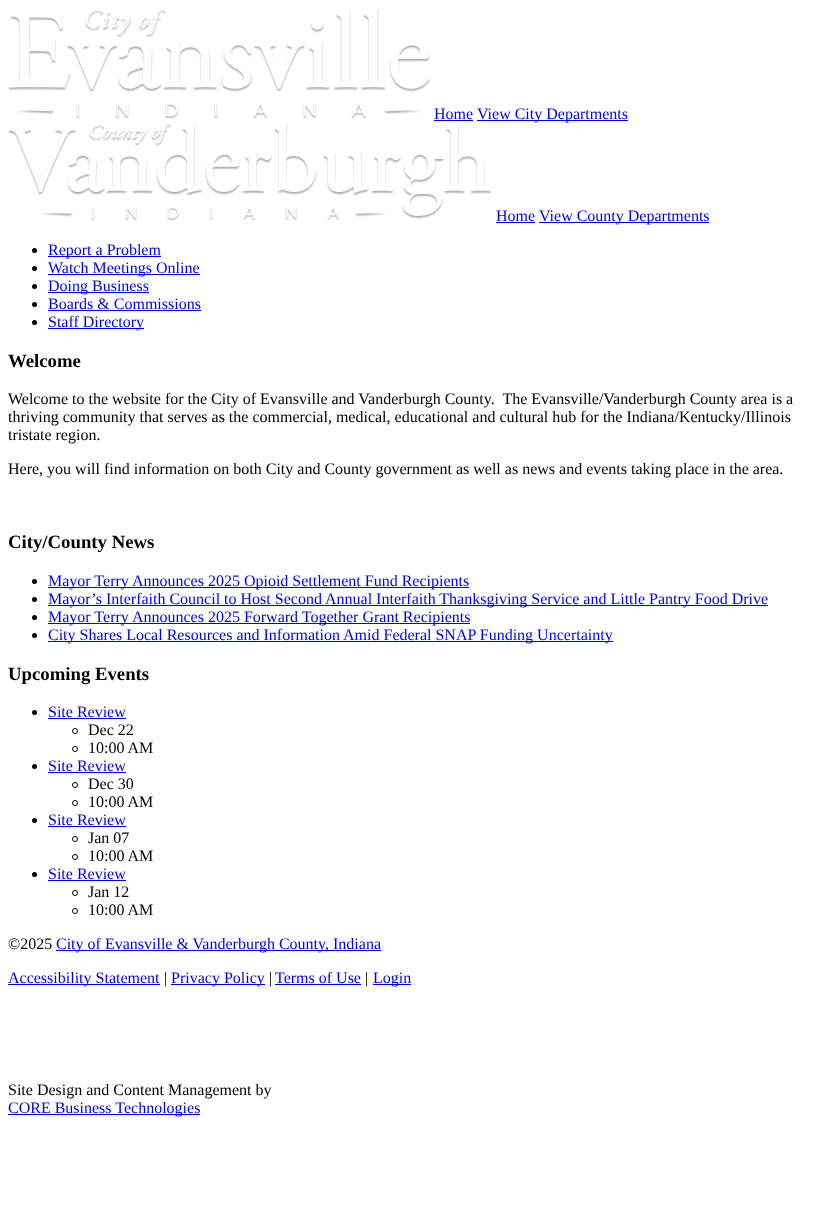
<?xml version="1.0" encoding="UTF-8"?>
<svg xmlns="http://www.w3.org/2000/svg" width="823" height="1205">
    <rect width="100%" height="100%" fill="#FFFFFF"/>
    <image x="8" y="9" width="422" height="110" href="img_01.png"/>
    <text x="434" y="119" font-family="Liberation Serif" font-size="16" fill="#0000EE">Home</text>
    <rect x="434" y="120" width="39" height="1" fill="#0000EE"/>
    <rect x="477" y="120" width="151" height="1" fill="#0000EE"/>
    <text x="477" y="119" font-family="Liberation Serif" font-size="16" fill="#0000EE">View City Departments</text>
    <image x="8" y="124" width="484" height="97" href="img_02.png"/>
    <text x="496" y="221" font-family="Liberation Serif" font-size="16" fill="#0000EE">Home</text>
    <rect x="496" y="222" width="39" height="1" fill="#0000EE"/>
    <rect x="539" y="222" width="170" height="1" fill="#0000EE"/>
    <text x="539" y="221" font-family="Liberation Serif" font-size="16" fill="#0000EE">View County Departments</text>
    <circle cx="34.5" cy="250.5" r="2.5" fill="#000000"/>
    <rect x="48" y="256" width="113" height="1" fill="#0000EE"/>
    <text x="48" y="255" font-family="Liberation Serif" font-size="16" fill="#0000EE">Report a Problem</text>
    <circle cx="34.5" cy="268.5" r="2.5" fill="#000000"/>
    <rect x="48" y="274" width="152" height="1" fill="#0000EE"/>
    <text x="48" y="273" font-family="Liberation Serif" font-size="16" fill="#0000EE">Watch Meetings Online</text>
    <circle cx="34.5" cy="286.5" r="2.5" fill="#000000"/>
    <rect x="48" y="292" width="101" height="1" fill="#0000EE"/>
    <text x="48" y="291" font-family="Liberation Serif" font-size="16" fill="#0000EE">Doing Business</text>
    <circle cx="34.5" cy="304.5" r="2.5" fill="#000000"/>
    <text x="48" y="309" font-family="Liberation Serif" font-size="16" fill="#0000EE">Boards &amp; Commissions</text>
    <rect x="48" y="310" width="153" height="1" fill="#0000EE"/>
    <circle cx="34.5" cy="322.5" r="2.5" fill="#000000"/>
    <rect x="48" y="328" width="96" height="1" fill="#0000EE"/>
    <text x="48" y="327" font-family="Liberation Serif" font-size="16" fill="#0000EE">Staff Directory</text>
    <text x="8" y="367" font-family="Liberation Serif" font-size="18.75" font-weight="700" fill="#000000">Welcome</text>
    <text font-family="Liberation Serif" font-size="16" fill="#000000" xml:space="preserve"><tspan x="8" y="404">Welcome to the website for the City of Evansville and Vanderburgh County.  The Evansville/Vanderburgh County area is a</tspan><tspan x="8" y="422">thriving community that serves as the commercial, medical, educational and cultural hub for the Indiana/Kentucky/Illinois</tspan><tspan x="8" y="440">tristate region.</tspan></text>
    <text x="8" y="474" font-family="Liberation Serif" font-size="16" fill="#000000">Here, you will find information on both City and County government as well as news and events taking place in the area.</text>
    <text x="8" y="548" font-family="Liberation Serif" font-size="18.75" font-weight="700" fill="#000000">City/County News</text>
    <circle cx="34.5" cy="581.5" r="2.5" fill="#000000"/>
    <rect x="48" y="587" width="421" height="1" fill="#0000EE"/>
    <text x="48" y="586" font-family="Liberation Serif" font-size="16" fill="#0000EE">Mayor Terry Announces 2025 Opioid Settlement Fund Recipients</text>
    <circle cx="34.5" cy="599.5" r="2.5" fill="#000000"/>
    <rect x="48" y="605" width="720" height="1" fill="#0000EE"/>
    <text x="48" y="604" font-family="Liberation Serif" font-size="16" fill="#0000EE">Mayor’s Interfaith Council to Host Second Annual Interfaith Thanksgiving Service and Little Pantry Food Drive</text>
    <circle cx="34.5" cy="617.5" r="2.5" fill="#000000"/>
    <rect x="48" y="623" width="422" height="1" fill="#0000EE"/>
    <text x="48" y="622" font-family="Liberation Serif" font-size="16" fill="#0000EE">Mayor Terry Announces 2025 Forward Together Grant Recipients</text>
    <circle cx="34.5" cy="635.5" r="2.5" fill="#000000"/>
    <rect x="48" y="641" width="565" height="1" fill="#0000EE"/>
    <text x="48" y="640" font-family="Liberation Serif" font-size="16" fill="#0000EE">City Shares Local Resources and Information Amid Federal SNAP Funding Uncertainty</text>
    <text x="8" y="680" font-family="Liberation Serif" font-size="18.75" font-weight="700" fill="#000000">Upcoming Events</text>
    <circle cx="34.5" cy="712.5" r="2.5" fill="#000000"/>
    <text x="48" y="717" font-family="Liberation Serif" font-size="16" fill="#0000EE">Site Review</text>
    <rect x="48" y="718" width="78" height="1" fill="#0000EE"/>
    <circle cx="75" cy="731" r="2.5" fill="none" stroke="#000000"/>
    <text x="88" y="735" font-family="Liberation Serif" font-size="16" fill="#000000">Dec 22</text>
    <circle cx="75" cy="749" r="2.5" fill="none" stroke="#000000"/>
    <text x="88" y="753" font-family="Liberation Serif" font-size="16" fill="#000000">10:00 AM</text>
    <circle cx="34.5" cy="766.5" r="2.5" fill="#000000"/>
    <text x="48" y="771" font-family="Liberation Serif" font-size="16" fill="#0000EE">Site Review</text>
    <rect x="48" y="772" width="78" height="1" fill="#0000EE"/>
    <circle cx="75" cy="785" r="2.5" fill="none" stroke="#000000"/>
    <text x="88" y="789" font-family="Liberation Serif" font-size="16" fill="#000000">Dec 30</text>
    <circle cx="75" cy="803" r="2.5" fill="none" stroke="#000000"/>
    <text x="88" y="807" font-family="Liberation Serif" font-size="16" fill="#000000">10:00 AM</text>
    <circle cx="34.5" cy="820.5" r="2.5" fill="#000000"/>
    <text x="48" y="825" font-family="Liberation Serif" font-size="16" fill="#0000EE">Site Review</text>
    <rect x="48" y="826" width="78" height="1" fill="#0000EE"/>
    <circle cx="75" cy="839" r="2.5" fill="none" stroke="#000000"/>
    <text x="88" y="843" font-family="Liberation Serif" font-size="16" fill="#000000">Jan 07</text>
    <circle cx="75" cy="857" r="2.5" fill="none" stroke="#000000"/>
    <text x="88" y="861" font-family="Liberation Serif" font-size="16" fill="#000000">10:00 AM</text>
    <circle cx="34.5" cy="874.5" r="2.5" fill="#000000"/>
    <text x="48" y="879" font-family="Liberation Serif" font-size="16" fill="#0000EE">Site Review</text>
    <rect x="48" y="880" width="78" height="1" fill="#0000EE"/>
    <circle cx="75" cy="893" r="2.5" fill="none" stroke="#000000"/>
    <text x="88" y="897" font-family="Liberation Serif" font-size="16" fill="#000000">Jan 12</text>
    <circle cx="75" cy="911" r="2.5" fill="none" stroke="#000000"/>
    <text x="88" y="915" font-family="Liberation Serif" font-size="16" fill="#000000">10:00 AM</text>
    <text x="8" y="949" font-family="Liberation Serif" font-size="16" fill="#000000">©2025</text>
    <rect x="56" y="950" width="325" height="1" fill="#0000EE"/>
    <text x="56" y="949" font-family="Liberation Serif" font-size="16" fill="#0000EE">City of Evansville &amp; Vanderburgh County, Indiana</text>
    <rect x="8" y="984" width="152" height="1" fill="#0000EE"/>
    <text x="8" y="983" font-family="Liberation Serif" font-size="16" fill="#0000EE">Accessibility Statement</text>
    <text x="164" y="983" font-family="Liberation Serif" font-size="16" fill="#000000">|</text>
    <rect x="171" y="984" width="94" height="1" fill="#0000EE"/>
    <text x="171" y="983" font-family="Liberation Serif" font-size="16" fill="#0000EE">Privacy Policy</text>
    <text x="269" y="983" font-family="Liberation Serif" font-size="16" fill="#000000">|</text>
    <text x="275" y="983" font-family="Liberation Serif" font-size="16" fill="#0000EE">Terms of Use</text>
    <rect x="275" y="984" width="86" height="1" fill="#0000EE"/>
    <text x="365" y="983" font-family="Liberation Serif" font-size="16" fill="#000000">|</text>
    <rect x="373" y="984" width="38" height="1" fill="#0000EE"/>
    <text x="373" y="983" font-family="Liberation Serif" font-size="16" fill="#0000EE">Login</text>
    <text x="8" y="1095" font-family="Liberation Serif" font-size="16" fill="#000000">Site Design and Content Management by</text>
    <rect x="8" y="1114" width="192" height="1" fill="#0000EE"/>
    <text x="8" y="1113" font-family="Liberation Serif" font-size="16" fill="#0000EE">CORE Business Technologies</text>
</svg>
